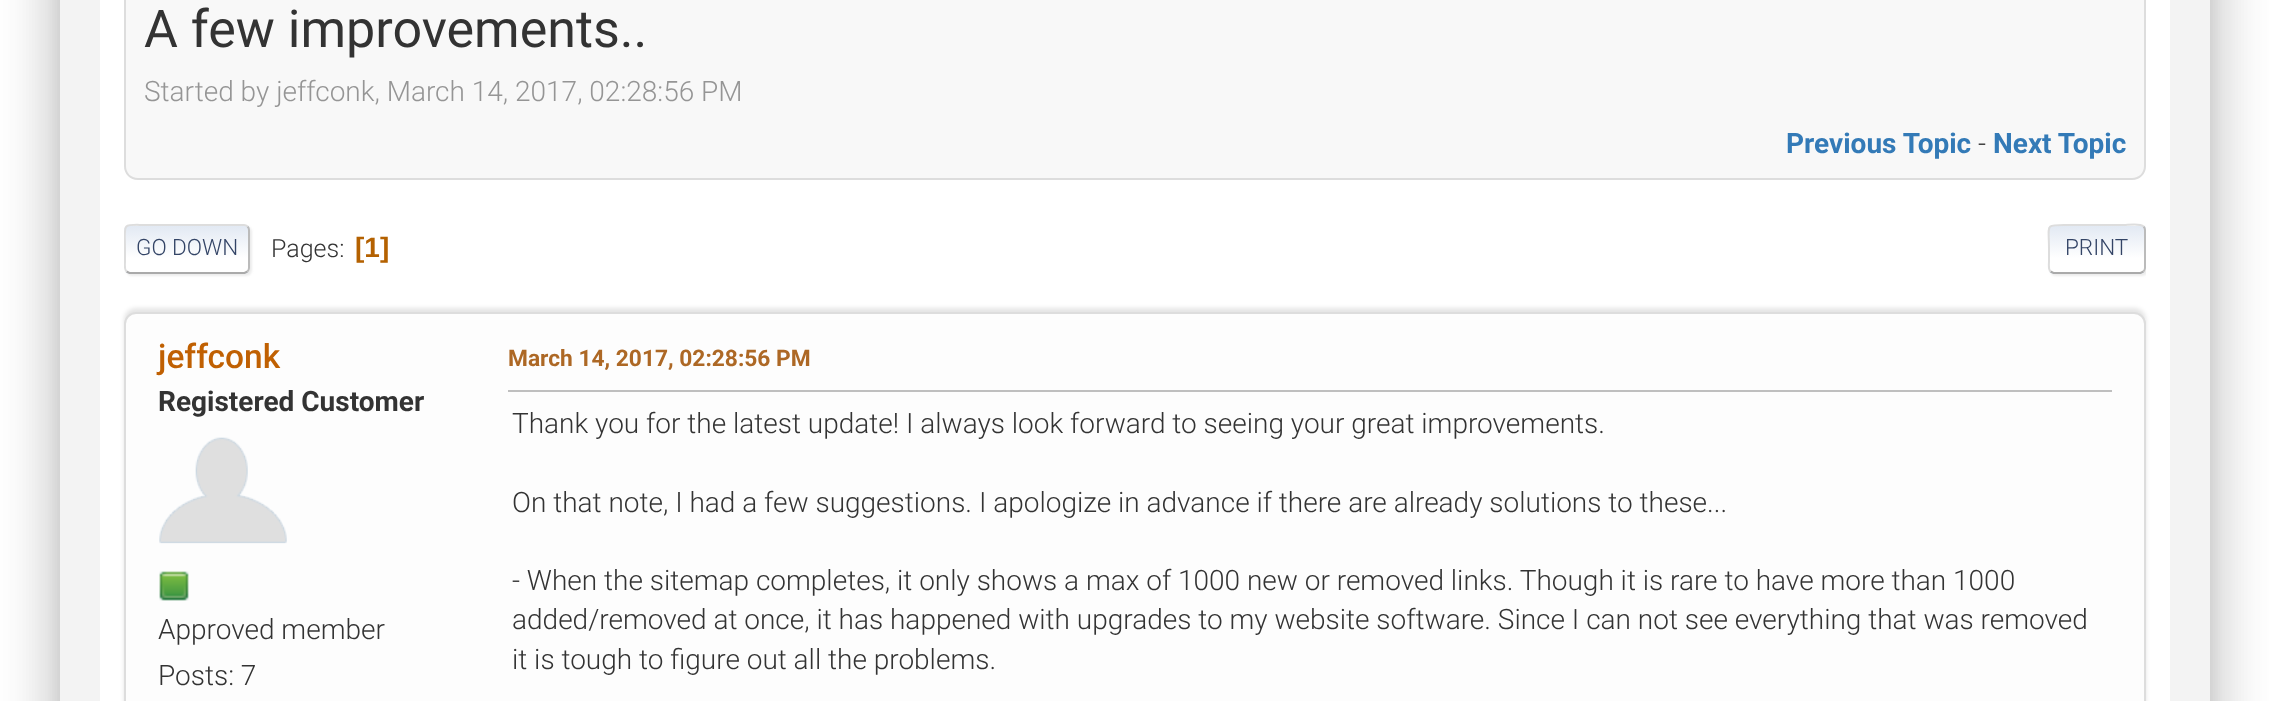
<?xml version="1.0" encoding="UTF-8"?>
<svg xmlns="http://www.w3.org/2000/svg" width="2269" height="701">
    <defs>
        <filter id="blur1" x="-50%" y="-200%" width="200%" height="500%"><feGaussianBlur stdDeviation="10"/></filter>
        <filter id="blur2" x="-50%" y="-200%" width="200%" height="500%"><feGaussianBlur stdDeviation="30"/></filter>
        <filter id="blur3" x="-50%" y="-200%" width="200%" height="500%"><feGaussianBlur stdDeviation="24"/></filter>
        <filter id="blur4" x="-50%" y="-200%" width="200%" height="500%"><feGaussianBlur stdDeviation="1"/></filter>
        <clipPath id="clip1"><rect x="124" y="224" width="126" height="50" rx="6"/></clipPath>
        <linearGradient id="g1" gradientUnits="userSpaceOnUse" x1="187" y1="226" x2="187" y2="272"><stop offset="0" stop-color="#E2E9F3"/><stop offset="0.7" stop-color="#FFFFFF"/></linearGradient>
        <linearGradient id="g2" gradientUnits="userSpaceOnUse" x1="187" y1="272" x2="187" y2="318"><stop offset="0" stop-color="#E2E9F3"/><stop offset="0.7" stop-color="#FFFFFF"/></linearGradient>
        <clipPath id="clip2"><rect x="124" y="210" width="2022" height="78"/></clipPath>
        <clipPath id="clip3"><rect x="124" y="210" width="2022" height="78"/></clipPath>
        <clipPath id="clip4"><rect x="2048" y="224" width="98" height="50" rx="6"/></clipPath>
        <linearGradient id="g3" gradientUnits="userSpaceOnUse" x1="2097" y1="226" x2="2097" y2="272"><stop offset="0" stop-color="#E2E9F3"/><stop offset="0.7" stop-color="#FFFFFF"/></linearGradient>
        <linearGradient id="g4" gradientUnits="userSpaceOnUse" x1="2097" y1="272" x2="2097" y2="318"><stop offset="0" stop-color="#E2E9F3"/><stop offset="0.7" stop-color="#FFFFFF"/></linearGradient>
        <filter id="blur5" x="-50%" y="-200%" width="200%" height="500%"><feGaussianBlur stdDeviation="2"/></filter>
    </defs>
    <rect width="100%" height="100%" fill="#FFFFFF"/>
    <rect x="70" y="-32" width="2130" height="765" rx="2" fill="#000000" fill-opacity="0.2" filter="url(#blur1)"/>
    <rect x="50" y="-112" width="2170" height="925" rx="22" fill="#000000" fill-opacity="0.12" filter="url(#blur2)"/>
    <rect x="56" y="-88" width="2158" height="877" rx="16" fill="#000000" fill-opacity="0.14" filter="url(#blur3)"/>
    <rect x="60" y="0" width="2150" height="701" fill="#F3F3F3"/>
    <rect x="100" y="0" width="2070" height="701" fill="#FFFFFF"/>
    <path d="M 124 -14 H 2146 V 166 C 2146 173.5 2139.5 180 2132 180 H 138 C 130.5 180 124 173.5 124 166 Z" fill="#F8F8F8"/>
    <path d="M 124 -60 H 2146 V 166 C 2146 174 2140 180 2132 180 H 138 C 130 180 124 174 124 166 Z M 126 -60 H 2144 V 166 C 2144 173 2139 178 2132 178 H 138 C 131 178 126 173 126 166 Z" fill="#DDDDDD" fill-rule="evenodd"/>
    <text x="144" y="47" font-family="Roboto" font-size="52" fill="#333333">A few improvements..</text>
    <text x="144" y="101" font-family="Roboto" font-size="28" font-weight="300" fill="#959595">Started by jeffconk, March 14, 2017, 02:28:56 PM</text>
    <text x="1786" y="153" font-family="Roboto" font-size="28" font-weight="700" fill="#337AB7">Previous Topic</text>
    <text x="1978" y="153" font-family="Roboto" font-size="28" font-weight="300" fill="#333333">-</text>
    <text x="1993" y="153" font-family="Roboto" font-size="28" font-weight="700" fill="#337AB7">Next Topic</text>
    <rect x="126" y="226" width="126" height="50" rx="6" fill="#DDDDDD" fill-opacity="0.57" filter="url(#blur4)"/>
    <g clip-path="url(#clip1)">
        <rect x="124" y="226" width="126" height="46" fill="url(#g1)"/>
        <rect x="124" y="272" width="126" height="2" fill="url(#g2)"/>
    </g>
    <path d="M 247.5 226.5 C 248.5 227.5 249 228.5 249 230 V 268 C 249 269.5 248.5 270.5 247.5 271.5" fill="none" stroke="#BBBBBB" stroke-width="2"/>
    <path d="M 247.5 271.5 L 244.5 273 H 129.5 L 126.5 271.5" fill="none" stroke="#AAAAAA" stroke-width="2"/>
    <g clip-path="url(#clip2)">
        <path d="M 126.5 271.5 C 124 269 125 264.5 125 261.5 V 249 C 125 221 120.5 225 149 225 H 244 C 245.5 225 246.5 225.5 247.5 226.5" fill="none" stroke="#DDDDDD" stroke-width="2"/>
    </g>
    <text x="136" y="255" font-family="Roboto" font-size="22.5" font-weight="300" fill="#334466">GO DOWN</text>
    <text x="271" y="257" font-family="Roboto" font-size="25" font-weight="300" fill="#333333">Pages:</text>
    <text x="355" y="257" font-family="Liberation Sans" font-size="28" font-weight="700" fill="#B46100">[1]</text>
    <g clip-path="url(#clip3)">
        <rect x="2050" y="226" width="98" height="50" rx="6" fill="#DDDDDD" fill-opacity="0.57" filter="url(#blur4)"/>
    </g>
    <rect x="2048" y="224" width="98" height="50" rx="6" fill="#FFFFFF"/>
    <g clip-path="url(#clip4)">
        <rect x="2048" y="226" width="98" height="46" fill="url(#g3)"/>
        <rect x="2048" y="272" width="98" height="2" fill="url(#g4)"/>
    </g>
    <path d="M 2143.5 226.5 C 2144.5 227.5 2145 228.5 2145 230 V 268 C 2145 269.5 2144.5 270.5 2143.5 271.5" fill="none" stroke="#BBBBBB" stroke-width="2"/>
    <path d="M 2143.5 271.5 L 2140.5 273 H 2053.5 L 2050.5 271.5" fill="none" stroke="#AAAAAA" stroke-width="2"/>
    <path d="M 2050.5 271.5 C 2048 269 2049 264.5 2049 261.5 V 249 C 2049 223.5 2044 225 2068.5 225 H 2125.5 C 2127.5 225 2140 223 2143.5 226.5" fill="none" stroke="#DDDDDD" stroke-width="2"/>
    <text x="2065" y="255" font-family="Roboto" font-size="22.5" font-weight="300" fill="#334466">PRINT</text>
    <rect x="124" y="308" width="2022" height="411" rx="12" fill="#000000" fill-opacity="0.1" filter="url(#blur5)"/>
    <rect x="125" y="313" width="2020" height="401" rx="11" fill="#FDFDFD" stroke="#DDDDDD" stroke-width="2"/>
    <text x="158" y="368" font-family="Roboto" font-size="33.5" font-weight="500" fill="#C06002">jeffconk</text>
    <text x="158" y="411" font-family="Roboto" font-size="28" font-weight="700" fill="#333333">Registered Customer</text>
    <image x="159" y="437" width="128" height="107" href="img_01.png"/>
    <image x="159" y="571" width="30" height="30" href="img_02.png"/>
    <text font-family="Roboto" font-size="28" font-weight="300" fill="#333333">
        <tspan x="158" y="639">Approved member</tspan>
        <tspan x="158" y="685">Posts: 7</tspan>
    </text>
    <text x="508" y="366" font-family="Roboto" font-size="22.75" font-weight="700" fill="#AD6825">March 14, 2017, 02:28:56 PM</text>
    <rect x="508" y="390" width="1604" height="2" fill="#BFBFBF"/>
    <text x="512" y="433" font-family="Roboto" font-size="28" font-weight="300" fill="#333333">Thank you for the latest update! I always look forward to seeing your great improvements.</text>
    <text x="512" y="512" font-family="Roboto" font-size="28" font-weight="300" fill="#333333">On that note, I had a few suggestions. I apologize in advance if there are already solutions to these...</text>
    <text font-family="Roboto" font-size="28" font-weight="300" fill="#333333">
        <tspan x="512" y="590">- When the sitemap completes, it only shows a max of 1000 new or removed links. Though it is rare to have more than 1000</tspan>
        <tspan x="512" y="629">added/removed at once, it has happened with upgrades to my website software. Since I can not see everything that was removed</tspan>
        <tspan x="512" y="669">it is tough to figure out all the problems.</tspan>
    </text>
</svg>
